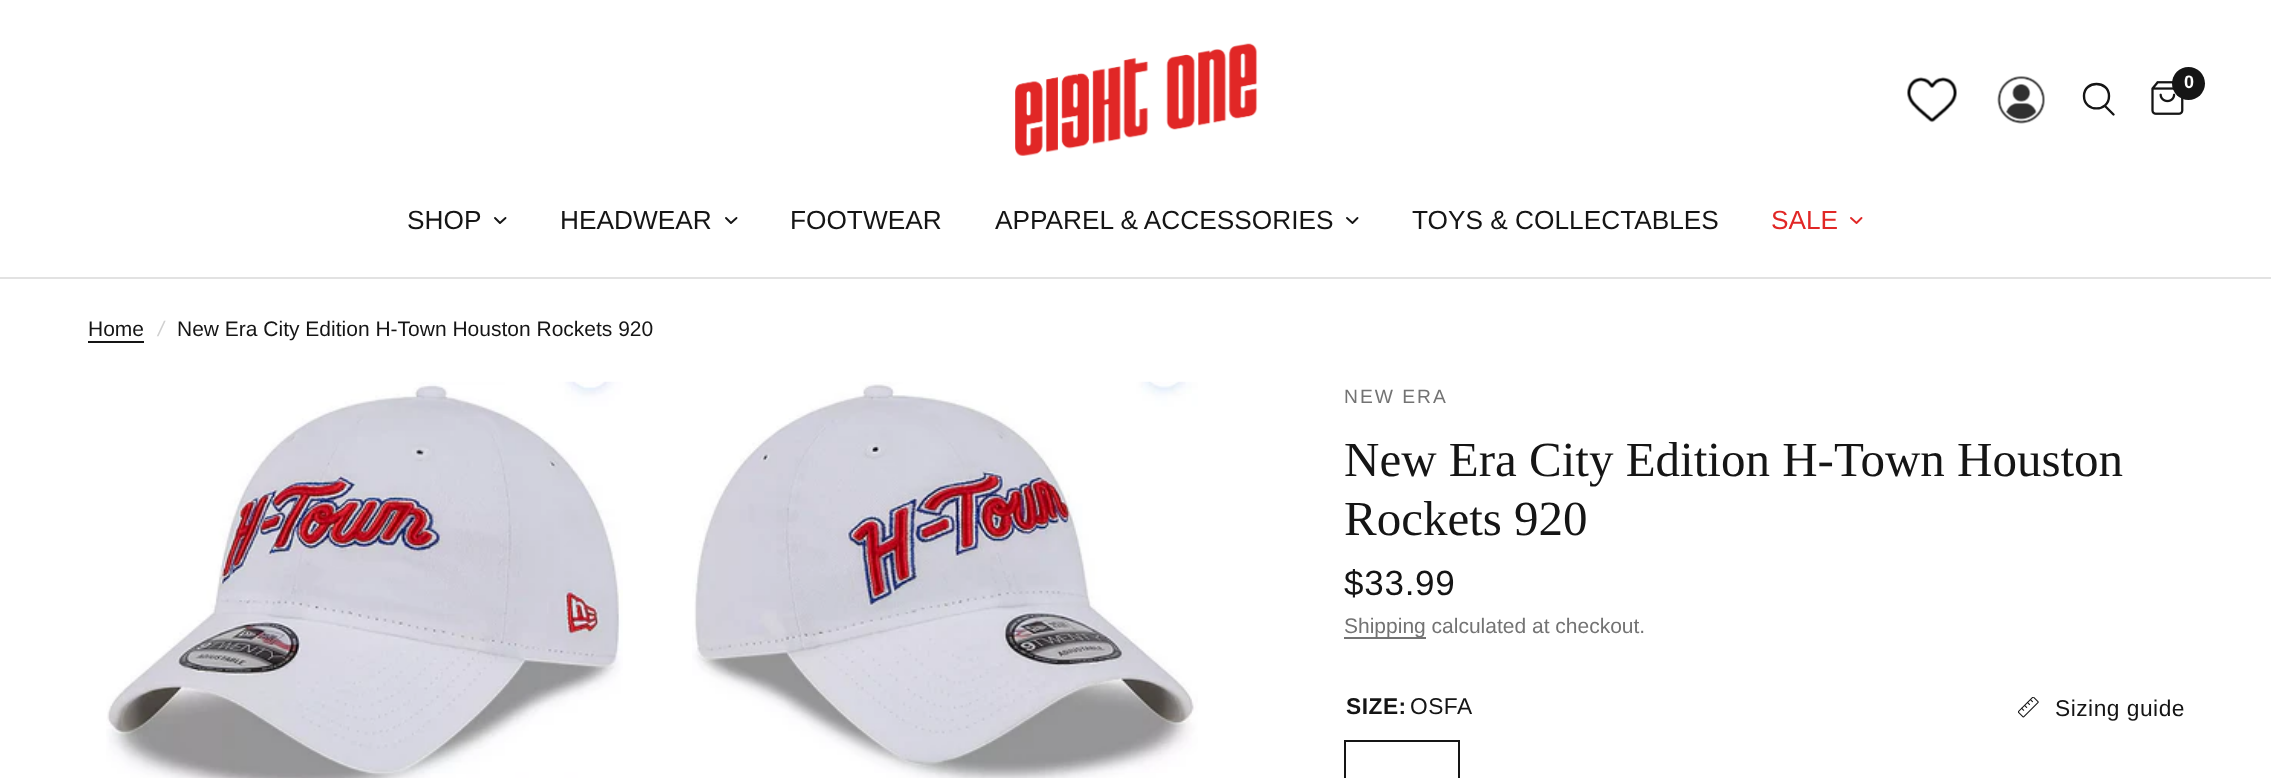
<?xml version="1.0" encoding="UTF-8"?>
<svg xmlns="http://www.w3.org/2000/svg" width="2271" height="778">
    <rect width="100%" height="100%" fill="#FFFFFF"/>
    <rect x="0" y="277" width="2271" height="2" fill="#E2E2E2"/>
    <image x="1015" y="43" width="243" height="113" href="img_01.png"/>
    <image x="1907" y="77" width="50" height="46" href="img_02.png"/>
    <image x="1997" y="76" width="48" height="48" href="img_03.png"/>
    <path d="M 2105 106 L 2113.5 114.5 M 2109 96 C 2109 112.5 2084 112.5 2084 96 C 2084 80 2109 80 2109 96 Z" fill="none" stroke="#151515" stroke-width="2.4" stroke-linecap="round" stroke-linejoin="round"/>
    <image x="2151" y="81" width="33" height="34" href="img_04.png"/>
    <circle cx="2188.5" cy="83.5" r="16.5" fill="#151515"/>
    <text x="2184" y="88" font-family="Liberation Sans" font-size="18" font-weight="700" fill="#FFFFFF">0</text>
    <text x="407" y="229" font-family="Liberation Sans" font-size="26.25" fill="#151515">SHOP</text>
    <path d="M 505.5 218 L 500 223 L 495 218" fill="none" stroke="#151515" stroke-width="1.9" stroke-linecap="round" stroke-linejoin="round"/>
    <text x="560" y="229" font-family="Liberation Sans" font-size="26.25" fill="#151515">HEADWEAR</text>
    <path d="M 736.5 218 L 731 223 L 726 218" fill="none" stroke="#151515" stroke-width="1.9" stroke-linecap="round" stroke-linejoin="round"/>
    <text x="790" y="229" font-family="Liberation Sans" font-size="26.25" fill="#151515">FOOTWEAR</text>
    <text x="995" y="229" font-family="Liberation Sans" font-size="26.25" fill="#151515">APPAREL &amp; ACCESSORIES</text>
    <path d="M 1357.5 218 L 1352.5 223 L 1347 218" fill="none" stroke="#151515" stroke-width="1.9" stroke-linecap="round" stroke-linejoin="round"/>
    <text x="1412" y="229" font-family="Liberation Sans" font-size="26.25" fill="#151515">TOYS &amp; COLLECTABLES</text>
    <text x="1771" y="229" font-family="Liberation Sans" font-size="26.25" fill="#E12726">SALE</text>
    <path d="M 1861.5 218 L 1856.5 223 L 1851 218" fill="none" stroke="#E12726" stroke-width="1.9" stroke-linecap="round" stroke-linejoin="round"/>
    <text x="88" y="336" font-family="Liberation Sans" font-size="21" fill="#151515">Home</text>
    <rect x="88" y="341" width="56" height="2" fill="#151515"/>
    <text x="158" y="336" font-family="Liberation Sans" font-size="21" font-style="italic" fill="#D0D0D0">/</text>
    <text x="177" y="336" font-family="Liberation Sans" font-size="21" fill="#151515">New Era City Edition H-Town Houston Rockets 920</text>
    <image x="106" y="381" width="517" height="397" href="img_05.png"/>
    <image x="692" y="381" width="506" height="397" href="img_06.png"/>
    <text x="1344" y="403" font-family="Liberation Sans" font-size="19.25" letter-spacing="2" fill="#737373">NEW ERA</text>
    <text font-family="Liberation Serif" font-size="49" fill="#151515">
        <tspan x="1344" y="476">New Era City Edition H-Town Houston</tspan>
        <tspan x="1344" y="535">Rockets 920</tspan>
    </text>
    <text x="1344" y="595" font-family="Liberation Sans" font-size="35" letter-spacing="0.75" fill="#151515">$33.99</text>
    <rect x="1344" y="637" width="82" height="2" fill="#737373"/>
    <text x="1344" y="633" font-family="Liberation Sans" font-size="21" fill="#737373">Shipping calculated at checkout.</text>
    <text x="1346" y="714" font-family="Liberation Sans" font-size="22.75" font-weight="700" letter-spacing="0.5" fill="#151515">SIZE:</text>
    <text x="1410" y="714" font-family="Liberation Sans" font-size="22.75" letter-spacing="0.5" fill="#151515">OSFA</text>
    <image x="2018" y="697" width="21" height="21" href="img_07.png"/>
    <text x="2055" y="716" font-family="Liberation Sans" font-size="22.75" letter-spacing="0.5" fill="#151515">Sizing guide</text>
    <rect x="1345" y="741" width="114" height="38" fill="none" stroke="#151515" stroke-width="2"/>
</svg>
